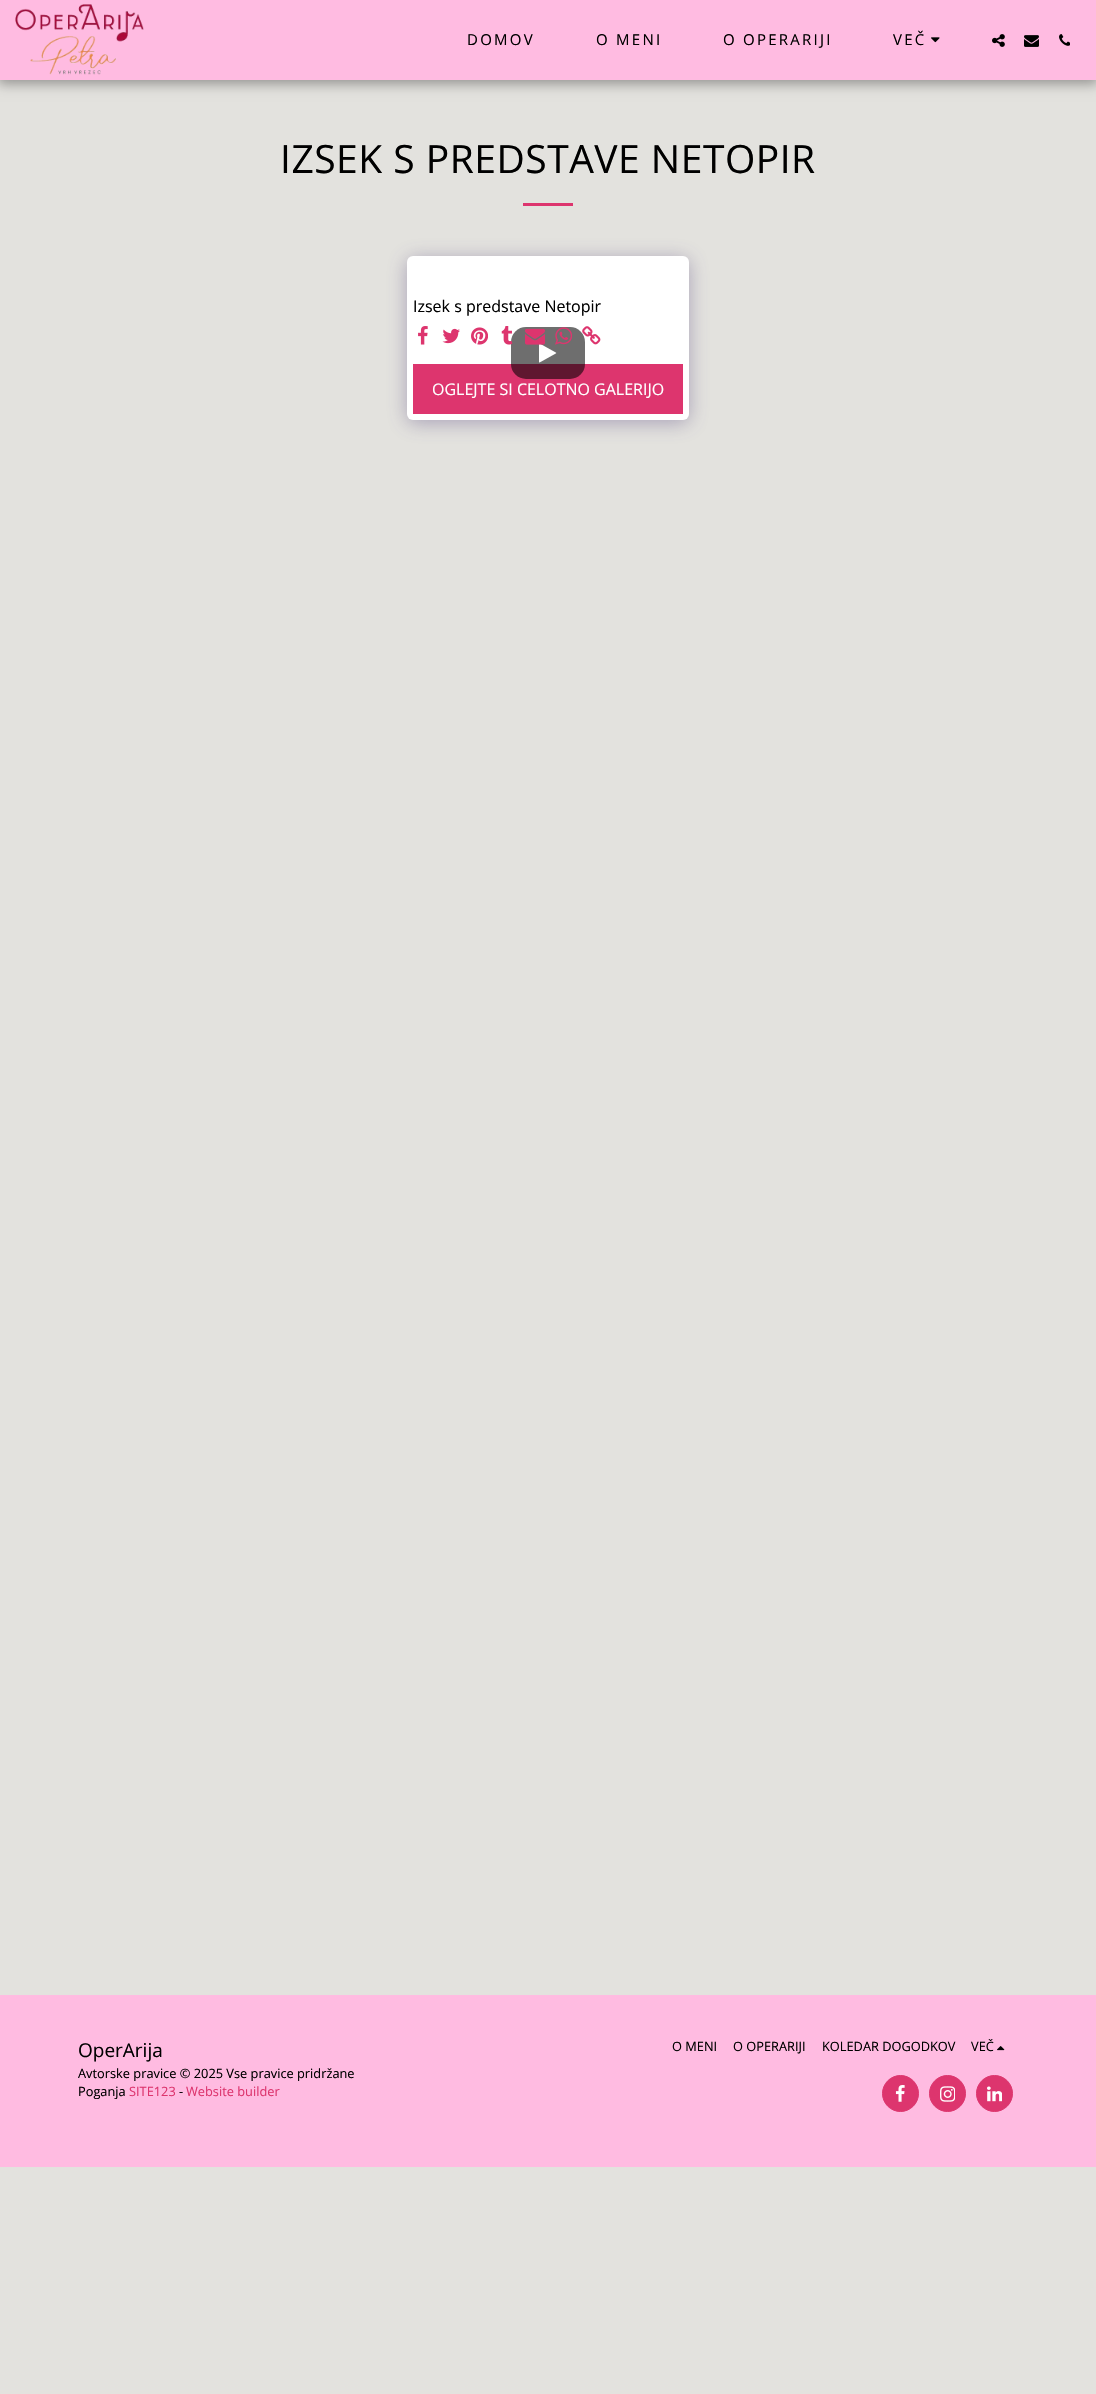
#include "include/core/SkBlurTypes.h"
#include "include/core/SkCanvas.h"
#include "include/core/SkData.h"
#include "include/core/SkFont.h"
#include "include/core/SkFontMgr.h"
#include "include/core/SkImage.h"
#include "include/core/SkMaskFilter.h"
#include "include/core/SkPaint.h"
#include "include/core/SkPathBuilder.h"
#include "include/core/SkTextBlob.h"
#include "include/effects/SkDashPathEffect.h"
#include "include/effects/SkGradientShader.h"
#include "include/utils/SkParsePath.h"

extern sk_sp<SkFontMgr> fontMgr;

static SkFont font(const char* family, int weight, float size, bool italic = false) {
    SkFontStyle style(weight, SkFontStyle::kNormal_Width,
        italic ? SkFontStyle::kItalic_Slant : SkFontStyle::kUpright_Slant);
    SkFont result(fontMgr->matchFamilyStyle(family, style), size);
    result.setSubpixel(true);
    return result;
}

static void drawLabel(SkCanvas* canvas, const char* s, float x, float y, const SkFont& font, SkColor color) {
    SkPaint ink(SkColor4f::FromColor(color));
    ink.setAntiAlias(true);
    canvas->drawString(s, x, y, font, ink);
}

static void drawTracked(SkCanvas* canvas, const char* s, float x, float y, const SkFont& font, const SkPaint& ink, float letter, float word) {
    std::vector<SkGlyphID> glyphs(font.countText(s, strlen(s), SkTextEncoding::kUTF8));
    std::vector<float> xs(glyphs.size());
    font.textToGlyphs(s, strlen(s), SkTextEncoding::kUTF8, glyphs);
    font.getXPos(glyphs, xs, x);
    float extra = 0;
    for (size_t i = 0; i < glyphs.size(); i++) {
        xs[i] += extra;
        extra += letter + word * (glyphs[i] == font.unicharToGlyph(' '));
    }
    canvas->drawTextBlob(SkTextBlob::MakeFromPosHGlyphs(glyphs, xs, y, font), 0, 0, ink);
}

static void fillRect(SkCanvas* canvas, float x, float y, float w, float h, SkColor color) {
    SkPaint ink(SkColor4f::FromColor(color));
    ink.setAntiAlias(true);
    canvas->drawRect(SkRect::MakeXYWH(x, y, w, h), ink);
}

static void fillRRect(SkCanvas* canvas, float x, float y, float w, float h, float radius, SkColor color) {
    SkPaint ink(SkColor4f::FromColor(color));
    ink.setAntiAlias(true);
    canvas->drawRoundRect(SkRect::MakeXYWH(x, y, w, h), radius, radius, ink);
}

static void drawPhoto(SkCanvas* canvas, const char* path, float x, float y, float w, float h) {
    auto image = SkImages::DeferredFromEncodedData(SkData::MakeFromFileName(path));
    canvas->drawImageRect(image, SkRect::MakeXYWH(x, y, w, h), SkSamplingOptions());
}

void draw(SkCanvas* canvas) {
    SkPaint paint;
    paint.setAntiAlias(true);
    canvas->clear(0xFFE3E2DE);
    paint.setColor(0x59000000);
    paint.setMaskFilter(SkMaskFilter::MakeBlur(kNormal_SkBlurStyle, 6));
    canvas->drawRect(SkRect::MakeXYWH(-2, 0, 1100, 84), paint);
    paint.setMaskFilter(nullptr);
    fillRect(canvas, 0, 0, 1096, 80, 0xFFFFBBE1);
    drawPhoto(canvas, "assets/img1.png", 15, 4, 129, 71);
    SkFont font1 = font("Open Sans", 400, 15);
    paint.setColor(0xFF000000);
    drawTracked(canvas, "DOMOV", 467, 45, font1, paint, 2.25f, 0);
    drawTracked(canvas, "O MENI", 596, 45, font1, paint, 2.25f, 0);
    drawTracked(canvas, "O OPERARIJI", 723, 45, font1, paint, 2.25f, 0);
    drawTracked(canvas, "VEČ", 893, 45, font1, paint, 2.25f, 0);
    drawPhoto(canvas, "assets/img2.png", 931, 37, 9, 6);
    drawPhoto(canvas, "assets/img3.png", 992, 34, 13, 13);
    drawPhoto(canvas, "assets/img4.png", 1024, 35, 15, 12);
    drawPhoto(canvas, "assets/img5.png", 1059, 34, 11, 12);
    SkFont font2 = font("Open Sans", 400, 39);
    drawTracked(canvas, "IZSEK S PREDSTAVE NETOPIR", 280, 173, font2, paint, 0.5f, 0);
    fillRect(canvas, 523, 203, 50, 3, 0xFFDD356E);
    paint.setColor(0x664D3F7A);
    paint.setMaskFilter(SkMaskFilter::MakeBlur(kNormal_SkBlurStyle, 10));
    canvas->drawRoundRect(SkRect::MakeXYWH(407, 259, 282, 164), 6, 6, paint);
    paint.setMaskFilter(nullptr);
    fillRRect(canvas, 407, 256, 282, 164, 6, 0xFFFFFFFF);
    SkFont font3 = font("Open Sans", 400, 16);
    drawLabel(canvas, "Izsek s predstave Netopir", 413, 312, font3, 0xFF000000);
    drawPhoto(canvas, "assets/img6.png", 418, 326, 10, 19);
    drawPhoto(canvas, "assets/img7.png", 442, 328, 18, 16);
    drawPhoto(canvas, "assets/img8.png", 471, 327, 17, 18);
    fillRect(canvas, 413, 364, 270, 50, 0xFFDD356E);
    fillRRect(canvas, 511, 327, 74, 52, 15, 0x91000000);
    drawPhoto(canvas, "assets/img9.png", 501, 326, 12, 19);
    drawPhoto(canvas, "assets/img13.png", 539, 344, 18, 19);
    drawPhoto(canvas, "assets/img10.png", 525, 328, 20, 17);
    drawPhoto(canvas, "assets/img11.png", 555, 327, 17, 18);
    drawPhoto(canvas, "assets/img12.png", 582, 326, 19, 19);
    drawLabel(canvas, "OGLEJTE SI CELOTNO GALERIJO", 432, 395, font3, 0xFFFFFFFF);
    fillRect(canvas, 0, 1995, 1096, 172, 0xFFFFBBE1);
    SkFont font4 = font("Open Sans", 400, 19);
    drawLabel(canvas, "OperArija", 78, 2057, font4, 0xFF000000);
    SkFont font5 = font("Open Sans", 400, 12.8f);
    drawLabel(canvas, "Avtorske pravice © 2025 Vse pravice pridržane", 78, 2078, font5, 0xFF000000);
    drawLabel(canvas, "Poganja", 78, 2096, font5, 0xFF000000);
    drawLabel(canvas, "SITE123", 129, 2096, font5, 0xFFDD356E);
    drawLabel(canvas, "-", 179, 2096, font5, 0xFF000000);
    drawLabel(canvas, "Website builder", 186, 2096, font5, 0xFFDD356E);
    drawLabel(canvas, "O MENI", 672, 2051, font5, 0xFF000000);
    drawLabel(canvas, "O OPERARIJI", 733, 2051, font5, 0xFF000000);
    drawLabel(canvas, "KOLEDAR DOGODKOV", 822, 2051, font5, 0xFF000000);
    drawLabel(canvas, "VEČ", 971, 2051, font5, 0xFF000000);
    drawPhoto(canvas, "assets/img14.png", 997, 2046, 8, 5);
    paint.setColor(0xFFDD356E);
    canvas->drawCircle(900.5f, 2093.5f, 18, paint);
    paint.setStroke(true);
    paint.setStrokeWidth(1);
    canvas->drawCircle(900.5f, 2093.5f, 18, paint);
    drawPhoto(canvas, "assets/img15.png", 895, 2085, 10, 17);
    paint.setStroke(false);
    canvas->drawCircle(947.5f, 2093.5f, 18, paint);
    paint.setStroke(true);
    canvas->drawCircle(947.5f, 2093.5f, 18, paint);
    drawPhoto(canvas, "assets/img16.png", 940, 2086, 15, 16);
    paint.setStroke(false);
    canvas->drawCircle(994.5f, 2093.5f, 18, paint);
    paint.setStroke(true);
    canvas->drawCircle(994.5f, 2093.5f, 18, paint);
    drawPhoto(canvas, "assets/img17.png", 987, 2086, 15, 16);
}
